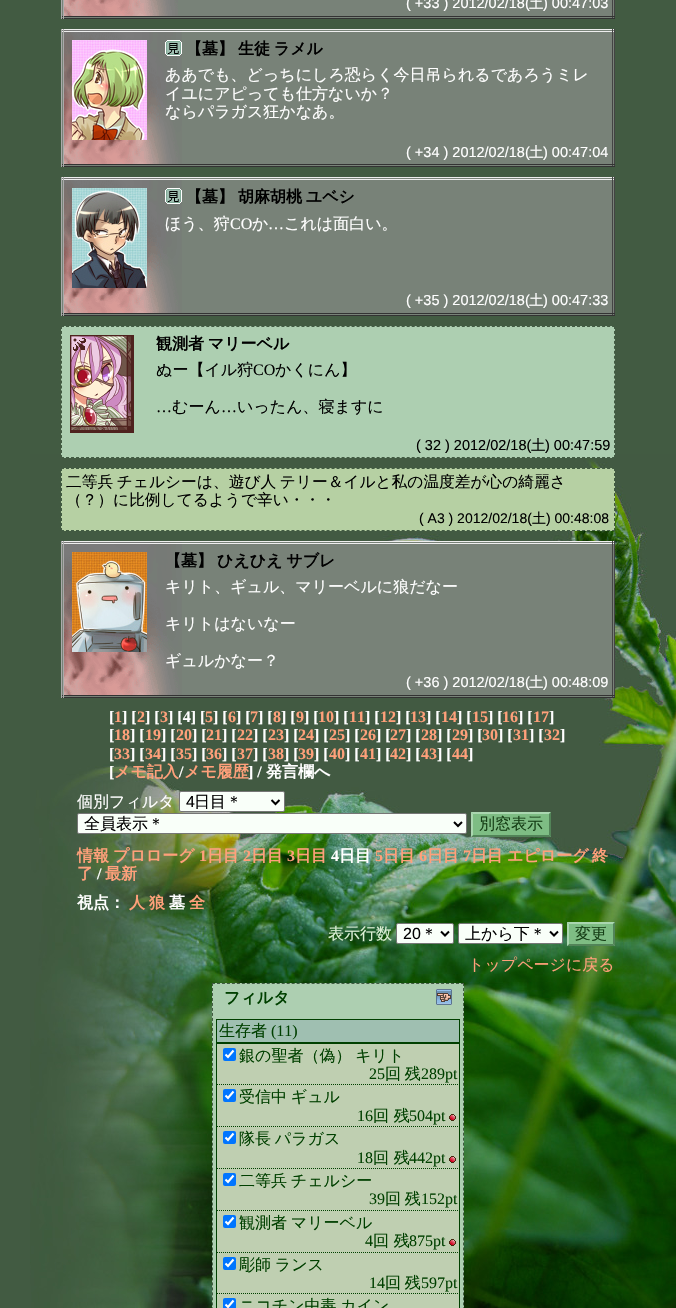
#include "include/core/SkBlurTypes.h"
#include "include/core/SkCanvas.h"
#include "include/core/SkData.h"
#include "include/core/SkFont.h"
#include "include/core/SkFontMgr.h"
#include "include/core/SkImage.h"
#include "include/core/SkMaskFilter.h"
#include "include/core/SkPaint.h"
#include "include/core/SkPathBuilder.h"
#include "include/core/SkTextBlob.h"
#include "include/effects/SkDashPathEffect.h"
#include "include/effects/SkGradientShader.h"
#include "include/utils/SkParsePath.h"

extern sk_sp<SkFontMgr> fontMgr;

static SkFont font(const char* family, int weight, float size, bool italic = false) {
    SkFontStyle style(weight, SkFontStyle::kNormal_Width,
        italic ? SkFontStyle::kItalic_Slant : SkFontStyle::kUpright_Slant);
    SkFont result(fontMgr->matchFamilyStyle(family, style), size);
    result.setSubpixel(true);
    return result;
}

static void drawLabel(SkCanvas* canvas, const char* s, float x, float y, const SkFont& font, SkColor color) {
    SkPaint ink(SkColor4f::FromColor(color));
    ink.setAntiAlias(true);
    canvas->drawString(s, x, y, font, ink);
}

static void drawTracked(SkCanvas* canvas, const char* s, float x, float y, const SkFont& font, const SkPaint& ink, float letter, float word) {
    std::vector<SkGlyphID> glyphs(font.countText(s, strlen(s), SkTextEncoding::kUTF8));
    std::vector<float> xs(glyphs.size());
    font.textToGlyphs(s, strlen(s), SkTextEncoding::kUTF8, glyphs);
    font.getXPos(glyphs, xs, x);
    float extra = 0;
    for (size_t i = 0; i < glyphs.size(); i++) {
        xs[i] += extra;
        extra += letter + word * (glyphs[i] == font.unicharToGlyph(' '));
    }
    canvas->drawTextBlob(SkTextBlob::MakeFromPosHGlyphs(glyphs, xs, y, font), 0, 0, ink);
}

static void fillRect(SkCanvas* canvas, float x, float y, float w, float h, SkColor color) {
    SkPaint ink(SkColor4f::FromColor(color));
    ink.setAntiAlias(true);
    canvas->drawRect(SkRect::MakeXYWH(x, y, w, h), ink);
}

static void fillRRect(SkCanvas* canvas, float x, float y, float w, float h, float radius, SkColor color) {
    SkPaint ink(SkColor4f::FromColor(color));
    ink.setAntiAlias(true);
    canvas->drawRoundRect(SkRect::MakeXYWH(x, y, w, h), radius, radius, ink);
}

static void drawPhoto(SkCanvas* canvas, const char* path, float x, float y, float w, float h) {
    auto image = SkImages::DeferredFromEncodedData(SkData::MakeFromFileName(path));
    canvas->drawImageRect(image, SkRect::MakeXYWH(x, y, w, h), SkSamplingOptions());
}

static SkPath parsePath(const char* data, bool evenOdd = false) {
    SkPath result = *SkParsePath::FromSVGString(data);
    if (evenOdd) result.setFillType(SkPathFillType::kEvenOdd);
    return result;
}

void draw(SkCanvas* canvas) {
    SkPaint paint;
    paint.setAntiAlias(true);
    canvas->clear(0xFF425B42);
    drawPhoto(canvas, "assets/img1.png", 30, 454, 646, 854);
    fillRect(canvas, 62, 0, 552, 18, 0xFF788278);
    drawPhoto(canvas, "assets/img2.png", 64, 0, 114, 16);
    fillRect(canvas, 612, 0, 1, 19, 0xFF444444);
    fillRect(canvas, 614, 0, 1, 19, 0xFF444444);
    fillRect(canvas, 61, 16, 554, 1, 0xFF333333);
    fillRect(canvas, 61, 18, 554, 1, 0xFF333333);
    fillRect(canvas, 61, 0, 1, 19, 0xFFAAAAAA);
    fillRect(canvas, 63, 0, 1, 19, 0xFFAAAAAA);
    SkFont font1 = font("Liberation Sans", 400, 14.5f);
    drawLabel(canvas, "( +33 ) 2012/02/18(", 406, 8, font1, 0xFFFFFFFF);
    SkFont font2 = font("WenQuanYi Zen Hei", 500, 14.5f);
    drawLabel(canvas, "土", 529, 8, font2, 0xFFFFFFFF);
    drawLabel(canvas, ") 00:47:03", 543, 8, font1, 0xFFFFFFFF);
    fillRect(canvas, 62, 30, 552, 136, 0xFF788278);
    drawPhoto(canvas, "assets/img3.png", 64, 30, 118, 134);
    fillRect(canvas, 61, 29, 554, 1, 0xFFEEEEEE);
    fillRect(canvas, 61, 31, 554, 1, 0xFFEEEEEE);
    fillRect(canvas, 612, 29, 1, 138, 0xFF444444);
    fillRect(canvas, 614, 29, 1, 138, 0xFF444444);
    fillRect(canvas, 61, 164, 554, 1, 0xFF333333);
    fillRect(canvas, 61, 166, 554, 1, 0xFF333333);
    fillRect(canvas, 61, 29, 1, 138, 0xFFAAAAAA);
    fillRect(canvas, 63, 29, 1, 138, 0xFFAAAAAA);
    drawPhoto(canvas, "assets/img4.png", 72, 40, 75, 100);
    drawPhoto(canvas, "assets/img5.png", 165, 40, 17, 16);
    SkFont font3 = font("WenQuanYi Zen Hei", 700, 16);
    drawLabel(canvas, "【墓】", 186, 54, font3, 0xFF000000);
    paint.setColor(0xFF000000);
    drawTracked(canvas, "生徒 ラメル", 238, 54, font3, paint, 0, -1);
    SkFont font4 = font("WenQuanYi Zen Hei", 500, 16);
    drawLabel(canvas, "ああでも、どっちにしろ恐らく今日吊られるであろうミレ", 165, 80, font4, 0xFFFFFFFF);
    drawLabel(canvas, "イユにアピっても仕方ないか？", 165, 99, font4, 0xFFFFFFFF);
    drawLabel(canvas, "ならパラガス狂かなあ。", 165, 117, font4, 0xFFFFFFFF);
    drawLabel(canvas, "( +34 ) 2012/02/18(", 406, 157, font1, 0xFFFFFFFF);
    drawLabel(canvas, "土", 529, 157, font2, 0xFFFFFFFF);
    drawLabel(canvas, ") 00:47:04", 543, 157, font1, 0xFFFFFFFF);
    fillRect(canvas, 62, 178, 552, 137, 0xFF788278);
    drawPhoto(canvas, "assets/img6.png", 64, 178, 118, 135);
    fillRect(canvas, 61, 177, 554, 1, 0xFFEEEEEE);
    fillRect(canvas, 61, 179, 554, 1, 0xFFEEEEEE);
    fillRect(canvas, 612, 177, 1, 139, 0xFF444444);
    fillRect(canvas, 614, 177, 1, 139, 0xFF444444);
    fillRect(canvas, 61, 313, 554, 1, 0xFF333333);
    fillRect(canvas, 61, 315, 554, 1, 0xFF333333);
    fillRect(canvas, 61, 177, 1, 139, 0xFFAAAAAA);
    fillRect(canvas, 63, 177, 1, 139, 0xFFAAAAAA);
    drawPhoto(canvas, "assets/img7.png", 72, 188, 75, 100);
    drawPhoto(canvas, "assets/img5.png", 165, 188, 17, 16);
    drawLabel(canvas, "【墓】", 186, 202, font3, 0xFF000000);
    drawTracked(canvas, "胡麻胡桃 ユベシ", 238, 202, font3, paint, 0, -1);
    drawLabel(canvas, "ほう、狩", 165, 229, font4, 0xFFFFFFFF);
    SkFont font5 = font("Liberation Serif", 400, 16);
    drawLabel(canvas, "CO", 230, 229, font5, 0xFFFFFFFF);
    drawLabel(canvas, "か", 252, 229, font4, 0xFFFFFFFF);
    drawLabel(canvas, "…", 268, 229, font5, 0xFFFFFFFF);
    drawLabel(canvas, "これは面白い。", 284, 229, font4, 0xFFFFFFFF);
    drawLabel(canvas, "( +35 ) 2012/02/18(", 406, 305, font1, 0xFFFFFFFF);
    drawLabel(canvas, "土", 529, 305, font2, 0xFFFFFFFF);
    drawLabel(canvas, ") 00:47:33", 543, 305, font1, 0xFFFFFFFF);
    fillRect(canvas, 61, 326, 554, 132, 0xFFADCFB1);
    paint.setStroke(true);
    paint.setStrokeWidth(1);
    paint.setColor(0xFF425B43);
    paint.setPathEffect(SkDashPathEffect::Make({{3, 2.01f}}, 0));
    canvas->drawPath(parsePath("M61 326.5H615"), paint);
    paint.setPathEffect(nullptr);
    paint.setPathEffect(SkDashPathEffect::Make({{3, 1.96f}}, 0));
    canvas->drawPath(parsePath("M614.5 326V458"), paint);
    paint.setPathEffect(nullptr);
    paint.setPathEffect(SkDashPathEffect::Make({{3, 2.01f}}, 0));
    canvas->drawPath(parsePath("M61 457.5H615"), paint);
    paint.setPathEffect(nullptr);
    paint.setPathEffect(SkDashPathEffect::Make({{3, 1.96f}}, 0));
    canvas->drawPath(parsePath("M61.5 326V458"), paint);
    paint.setPathEffect(nullptr);
    drawPhoto(canvas, "assets/img8.png", 70, 335, 64, 98);
    paint.setStroke(false);
    paint.setColor(0xFF000000);
    drawTracked(canvas, "観測者 マリーベル", 156, 349, font3, paint, 0, -1);
    drawLabel(canvas, "ぬー【イル狩", 156, 375, font4, 0xFF000000);
    drawLabel(canvas, "CO", 253, 375, font5, 0xFF000000);
    drawLabel(canvas, "かくにん】", 275, 375, font4, 0xFF000000);
    drawLabel(canvas, "…", 156, 412, font5, 0xFF000000);
    drawLabel(canvas, "むーん", 172, 412, font4, 0xFF000000);
    drawLabel(canvas, "…", 221, 412, font5, 0xFF000000);
    drawLabel(canvas, "いったん、寝ますに", 237, 412, font4, 0xFF000000);
    drawLabel(canvas, "( 32 ) 2012/02/18(", 416, 450, font1, 0xFF000000);
    drawLabel(canvas, "土", 531, 450, font2, 0xFF000000);
    drawLabel(canvas, ") 00:47:59", 545, 450, font1, 0xFF000000);
    fillRect(canvas, 61, 468, 554, 63, 0xFFB6D0A3);
    paint.setStroke(true);
    paint.setColor(0xFF425B43);
    paint.setPathEffect(SkDashPathEffect::Make({{3, 2.01f}}, 0));
    canvas->drawPath(parsePath("M61 468.5H615"), paint);
    paint.setPathEffect(nullptr);
    paint.setPathEffect(SkDashPathEffect::Make({{3, 2}}, 0));
    canvas->drawPath(parsePath("M614.5 468V531"), paint);
    paint.setPathEffect(nullptr);
    paint.setPathEffect(SkDashPathEffect::Make({{3, 2.01f}}, 0));
    canvas->drawPath(parsePath("M61 530.5H615"), paint);
    paint.setPathEffect(nullptr);
    paint.setPathEffect(SkDashPathEffect::Make({{3, 2}}, 0));
    canvas->drawPath(parsePath("M61.5 468V531"), paint);
    paint.setPathEffect(nullptr);
    SkFont font6 = font("WenQuanYi Zen Hei", 500, 15.7f);
    paint.setStroke(false);
    paint.setColor(0xFF000000);
    drawTracked(canvas, "二等兵 チェルシー", 66, 487, font6, paint, 0, -1);
    drawLabel(canvas, "は", 197, 487, font6, 0xFF000000);
    drawTracked(canvas, "、遊び人 テリー＆イルと私の温度差が心の綺麗さ", 213, 487, font6, paint, 0, -1);
    drawLabel(canvas, "（？）に比例してるようで辛い・・・", 66, 505, font6, 0xFF000000);
    SkFont font7 = font("Liberation Sans", 400, 14);
    drawLabel(canvas, "( A3 ) 2012/02/18(", 419, 523, font7, 0xFF000000);
    SkFont font8 = font("WenQuanYi Zen Hei", 500, 14);
    drawLabel(canvas, "土", 532, 523, font8, 0xFF000000);
    drawLabel(canvas, ") 00:48:08", 546, 523, font7, 0xFF000000);
    fillRect(canvas, 62, 542, 552, 155, 0xFF788278);
    drawPhoto(canvas, "assets/img9.png", 64, 542, 118, 153);
    fillRect(canvas, 61, 541, 554, 1, 0xFFEEEEEE);
    fillRect(canvas, 61, 543, 554, 1, 0xFFEEEEEE);
    fillRect(canvas, 612, 541, 1, 157, 0xFF444444);
    fillRect(canvas, 614, 541, 1, 157, 0xFF444444);
    fillRect(canvas, 61, 695, 554, 1, 0xFF333333);
    fillRect(canvas, 61, 697, 554, 1, 0xFF333333);
    fillRect(canvas, 61, 541, 1, 157, 0xFFAAAAAA);
    fillRect(canvas, 63, 541, 1, 157, 0xFFAAAAAA);
    drawPhoto(canvas, "assets/img10.png", 72, 552, 75, 100);
    drawLabel(canvas, "【墓】", 165, 566, font3, 0xFF000000);
    drawTracked(canvas, "ひえひえ サブレ", 217, 566, font3, paint, 0, -1);
    drawLabel(canvas, "キリト、ギュル、マリーベルに狼だなー", 165, 592, font4, 0xFFFFFFFF);
    drawLabel(canvas, "キリトはないなー", 165, 629, font4, 0xFFFFFFFF);
    drawLabel(canvas, "ギュルかなー？", 165, 666, font4, 0xFFFFFFFF);
    drawLabel(canvas, "( +36 ) 2012/02/18(", 406, 687, font1, 0xFFFFFFFF);
    drawLabel(canvas, "土", 529, 687, font2, 0xFFFFFFFF);
    drawLabel(canvas, ") 00:48:09", 543, 687, font1, 0xFFFFFFFF);
    SkFont font9 = font("Liberation Serif", 700, 16);
    drawLabel(canvas, "[", 109, 722, font9, 0xFFFFFFFF);
    drawLabel(canvas, "1", 114, 722, font9, 0xFFFFA07A);
    drawLabel(canvas, "] [", 122, 722, font9, 0xFFFFFFFF);
    drawLabel(canvas, "2", 137, 722, font9, 0xFFFFA07A);
    drawLabel(canvas, "] [", 145, 722, font9, 0xFFFFFFFF);
    drawLabel(canvas, "3", 160, 722, font9, 0xFFFFA07A);
    drawLabel(canvas, "] [4] [", 168, 722, font9, 0xFFFFFFFF);
    drawLabel(canvas, "5", 205, 722, font9, 0xFFFFA07A);
    drawLabel(canvas, "] [", 213, 722, font9, 0xFFFFFFFF);
    drawLabel(canvas, "6", 228, 722, font9, 0xFFFFA07A);
    drawLabel(canvas, "] [", 236, 722, font9, 0xFFFFFFFF);
    drawLabel(canvas, "7", 250, 722, font9, 0xFFFFA07A);
    drawLabel(canvas, "] [", 258, 722, font9, 0xFFFFFFFF);
    drawLabel(canvas, "8", 273, 722, font9, 0xFFFFA07A);
    drawLabel(canvas, "] [", 281, 722, font9, 0xFFFFFFFF);
    drawLabel(canvas, "9", 296, 722, font9, 0xFFFFA07A);
    drawLabel(canvas, "] [", 304, 722, font9, 0xFFFFFFFF);
    drawLabel(canvas, "10", 318, 722, font9, 0xFFFFA07A);
    drawLabel(canvas, "] [", 334, 722, font9, 0xFFFFFFFF);
    drawLabel(canvas, "11", 349, 722, font9, 0xFFFFA07A);
    drawLabel(canvas, "] [", 365, 722, font9, 0xFFFFFFFF);
    drawLabel(canvas, "12", 380, 722, font9, 0xFFFFA07A);
    drawLabel(canvas, "] [", 396, 722, font9, 0xFFFFFFFF);
    drawLabel(canvas, "13", 410, 722, font9, 0xFFFFA07A);
    drawLabel(canvas, "] [", 426, 722, font9, 0xFFFFFFFF);
    drawLabel(canvas, "14", 441, 722, font9, 0xFFFFA07A);
    drawLabel(canvas, "] [", 457, 722, font9, 0xFFFFFFFF);
    drawLabel(canvas, "15", 472, 722, font9, 0xFFFFA07A);
    drawLabel(canvas, "] [", 488, 722, font9, 0xFFFFFFFF);
    drawLabel(canvas, "16", 502, 722, font9, 0xFFFFA07A);
    drawLabel(canvas, "] [", 518, 722, font9, 0xFFFFFFFF);
    drawLabel(canvas, "17", 533, 722, font9, 0xFFFFA07A);
    drawLabel(canvas, "]", 549, 722, font9, 0xFFFFFFFF);
    drawLabel(canvas, "[", 109, 740, font9, 0xFFFFFFFF);
    drawLabel(canvas, "18", 114, 740, font9, 0xFFFFA07A);
    drawLabel(canvas, "] [", 130, 740, font9, 0xFFFFFFFF);
    drawLabel(canvas, "19", 145, 740, font9, 0xFFFFA07A);
    drawLabel(canvas, "] [", 161, 740, font9, 0xFFFFFFFF);
    drawLabel(canvas, "20", 176, 740, font9, 0xFFFFA07A);
    drawLabel(canvas, "] [", 192, 740, font9, 0xFFFFFFFF);
    drawLabel(canvas, "21", 206, 740, font9, 0xFFFFA07A);
    drawLabel(canvas, "] [", 222, 740, font9, 0xFFFFFFFF);
    drawLabel(canvas, "22", 237, 740, font9, 0xFFFFA07A);
    drawLabel(canvas, "] [", 253, 740, font9, 0xFFFFFFFF);
    drawLabel(canvas, "23", 268, 740, font9, 0xFFFFA07A);
    drawLabel(canvas, "] [", 284, 740, font9, 0xFFFFFFFF);
    drawLabel(canvas, "24", 298, 740, font9, 0xFFFFA07A);
    drawLabel(canvas, "] [", 314, 740, font9, 0xFFFFFFFF);
    drawLabel(canvas, "25", 329, 740, font9, 0xFFFFA07A);
    drawLabel(canvas, "] [", 345, 740, font9, 0xFFFFFFFF);
    drawLabel(canvas, "26", 360, 740, font9, 0xFFFFA07A);
    drawLabel(canvas, "] [", 376, 740, font9, 0xFFFFFFFF);
    drawLabel(canvas, "27", 390, 740, font9, 0xFFFFA07A);
    drawLabel(canvas, "] [", 406, 740, font9, 0xFFFFFFFF);
    drawLabel(canvas, "28", 421, 740, font9, 0xFFFFA07A);
    drawLabel(canvas, "] [", 437, 740, font9, 0xFFFFFFFF);
    drawLabel(canvas, "29", 452, 740, font9, 0xFFFFA07A);
    drawLabel(canvas, "] [", 468, 740, font9, 0xFFFFFFFF);
    drawLabel(canvas, "30", 482, 740, font9, 0xFFFFA07A);
    drawLabel(canvas, "] [", 498, 740, font9, 0xFFFFFFFF);
    drawLabel(canvas, "31", 513, 740, font9, 0xFFFFA07A);
    drawLabel(canvas, "] [", 529, 740, font9, 0xFFFFFFFF);
    drawLabel(canvas, "32", 544, 740, font9, 0xFFFFA07A);
    drawLabel(canvas, "]", 560, 740, font9, 0xFFFFFFFF);
    drawLabel(canvas, "[", 109, 759, font9, 0xFFFFFFFF);
    drawLabel(canvas, "33", 114, 759, font9, 0xFFFFA07A);
    drawLabel(canvas, "] [", 130, 759, font9, 0xFFFFFFFF);
    drawLabel(canvas, "34", 145, 759, font9, 0xFFFFA07A);
    drawLabel(canvas, "] [", 161, 759, font9, 0xFFFFFFFF);
    drawLabel(canvas, "35", 176, 759, font9, 0xFFFFA07A);
    drawLabel(canvas, "] [", 192, 759, font9, 0xFFFFFFFF);
    drawLabel(canvas, "36", 206, 759, font9, 0xFFFFA07A);
    drawLabel(canvas, "] [", 222, 759, font9, 0xFFFFFFFF);
    drawLabel(canvas, "37", 237, 759, font9, 0xFFFFA07A);
    drawLabel(canvas, "] [", 253, 759, font9, 0xFFFFFFFF);
    drawLabel(canvas, "38", 268, 759, font9, 0xFFFFA07A);
    drawLabel(canvas, "] [", 284, 759, font9, 0xFFFFFFFF);
    drawLabel(canvas, "39", 298, 759, font9, 0xFFFFA07A);
    drawLabel(canvas, "] [", 314, 759, font9, 0xFFFFFFFF);
    drawLabel(canvas, "40", 329, 759, font9, 0xFFFFA07A);
    drawLabel(canvas, "] [", 345, 759, font9, 0xFFFFFFFF);
    drawLabel(canvas, "41", 360, 759, font9, 0xFFFFA07A);
    drawLabel(canvas, "] [", 376, 759, font9, 0xFFFFFFFF);
    drawLabel(canvas, "42", 390, 759, font9, 0xFFFFA07A);
    drawLabel(canvas, "] [", 406, 759, font9, 0xFFFFFFFF);
    drawLabel(canvas, "43", 421, 759, font9, 0xFFFFA07A);
    drawLabel(canvas, "] [", 437, 759, font9, 0xFFFFFFFF);
    drawLabel(canvas, "44", 452, 759, font9, 0xFFFFA07A);
    drawLabel(canvas, "]", 468, 759, font9, 0xFFFFFFFF);
    drawLabel(canvas, "[", 109, 777, font9, 0xFFFFFFFF);
    drawLabel(canvas, "メモ記入", 114, 777, font3, 0xFFFFA07A);
    drawLabel(canvas, "/", 179, 777, font9, 0xFFFFFFFF);
    drawLabel(canvas, "メモ履歴", 184, 777, font3, 0xFFFFA07A);
    drawLabel(canvas, "] /", 248, 777, font9, 0xFFFFFFFF);
    drawLabel(canvas, "発言欄へ", 266, 777, font3, 0xFFFFFFFF);
    drawLabel(canvas, "個別フィルタ", 77, 807, font4, 0xFFFFFFFF);
    paint.setColor(0xFFF9FFF9);
    canvas->drawRoundRect(SkRect::MakeXYWH(179.5f, 791.5f, 105, 20), 1.5f, 1.5f, paint);
    paint.setStroke(true);
    paint.setColor(0xFF767676);
    canvas->drawRoundRect(SkRect::MakeXYWH(179.5f, 791.5f, 105, 20), 1.5f, 1.5f, paint);
    paint.setStrokeWidth(2);
    paint.setColor(0xFF000000);
    canvas->drawPath(parsePath("M271.5 800L275.5 804L279.5 800"), paint);
    SkFont font10 = font("Liberation Sans", 400, 16);
    drawLabel(canvas, "4", 186, 807, font10, 0xFF000000);
    drawLabel(canvas, "日目＊", 194, 807, font4, 0xFF000000);
    paint.setStroke(false);
    paint.setColor(0xFFF9FFF9);
    canvas->drawRoundRect(SkRect::MakeXYWH(77.5f, 813.5f, 389, 20), 1.5f, 1.5f, paint);
    paint.setStroke(true);
    paint.setStrokeWidth(1);
    paint.setColor(0xFF767676);
    canvas->drawRoundRect(SkRect::MakeXYWH(77.5f, 813.5f, 389, 20), 1.5f, 1.5f, paint);
    paint.setStrokeWidth(2);
    paint.setColor(0xFF000000);
    canvas->drawPath(parsePath("M454 822L458 826L462 822"), paint);
    drawLabel(canvas, "全員表示＊", 84, 829, font4, 0xFF000000);
    fillRect(canvas, 471, 812, 80, 25, 0xFF7EBD84);
    paint.setStroke(false);
    paint.setColor(0xFFAAD6B0);
    canvas->drawPath(parsePath("M471 812H551L549 814H473Z"), paint);
    paint.setColor(0xFF528458);
    canvas->drawPath(parsePath("M551 812V837L549 835V814Z"), paint);
    canvas->drawPath(parsePath("M551 837H471L473 835H549Z"), paint);
    paint.setColor(0xFFAAD6B0);
    canvas->drawPath(parsePath("M471 837V812L473 814V835Z"), paint);
    drawLabel(canvas, "別窓表示", 479, 829, font4, 0xFF163F16);
    drawLabel(canvas, "情報", 77, 861, font3, 0xFFFFA07A);
    drawLabel(canvas, "プロローグ", 113, 861, font3, 0xFFFFA07A);
    drawLabel(canvas, "1", 199, 861, font9, 0xFFFFA07A);
    drawLabel(canvas, "日目", 207, 861, font3, 0xFFFFA07A);
    drawLabel(canvas, "2", 243, 861, font9, 0xFFFFA07A);
    drawLabel(canvas, "日目", 251, 861, font3, 0xFFFFA07A);
    drawLabel(canvas, "3", 287, 861, font9, 0xFFFFA07A);
    drawLabel(canvas, "日目", 295, 861, font3, 0xFFFFA07A);
    drawLabel(canvas, "4", 331, 861, font9, 0xFFFFFFFF);
    drawLabel(canvas, "日目", 339, 861, font3, 0xFFFFFFFF);
    drawLabel(canvas, "5", 375, 861, font9, 0xFFFFA07A);
    drawLabel(canvas, "日目", 383, 861, font3, 0xFFFFA07A);
    drawLabel(canvas, "6", 419, 861, font9, 0xFFFFA07A);
    drawLabel(canvas, "日目", 427, 861, font3, 0xFFFFA07A);
    drawLabel(canvas, "7", 463, 861, font9, 0xFFFFA07A);
    drawLabel(canvas, "日目", 471, 861, font3, 0xFFFFA07A);
    drawLabel(canvas, "エピローグ", 507, 861, font3, 0xFFFFA07A);
    drawLabel(canvas, "終", 592, 861, font3, 0xFFFFA07A);
    drawLabel(canvas, "了", 77, 879, font3, 0xFFFFA07A);
    drawLabel(canvas, "/", 97, 879, font9, 0xFFFFFFFF);
    drawLabel(canvas, "最新", 105, 879, font3, 0xFFFFA07A);
    drawLabel(canvas, "視点：", 77, 908, font3, 0xFFFFFFFF);
    drawLabel(canvas, "人", 129, 908, font3, 0xFFFFA07A);
    drawLabel(canvas, "狼", 149, 908, font3, 0xFFFFA07A);
    drawLabel(canvas, "墓", 169, 908, font3, 0xFFFFFFFF);
    drawLabel(canvas, "全", 189, 908, font3, 0xFFFFA07A);
    drawLabel(canvas, "表示行数", 328, 939, font4, 0xFFDDF0D6);
    paint.setColor(0xFFF9FFF9);
    canvas->drawRoundRect(SkRect::MakeXYWH(396.5f, 923.5f, 57, 20), 1.5f, 1.5f, paint);
    paint.setStroke(true);
    paint.setStrokeWidth(1);
    paint.setColor(0xFF767676);
    canvas->drawRoundRect(SkRect::MakeXYWH(396.5f, 923.5f, 57, 20), 1.5f, 1.5f, paint);
    paint.setStrokeWidth(2);
    paint.setColor(0xFF000000);
    canvas->drawPath(parsePath("M441 931.5L445 935.5L449 931.5"), paint);
    drawLabel(canvas, "20", 403, 939, font10, 0xFF000000);
    drawLabel(canvas, "＊", 421, 939, font4, 0xFF000000);
    paint.setStroke(false);
    paint.setColor(0xFFF9FFF9);
    canvas->drawRoundRect(SkRect::MakeXYWH(458.5f, 923.5f, 104, 20), 1.5f, 1.5f, paint);
    paint.setStroke(true);
    paint.setStrokeWidth(1);
    paint.setColor(0xFF767676);
    canvas->drawRoundRect(SkRect::MakeXYWH(458.5f, 923.5f, 104, 20), 1.5f, 1.5f, paint);
    paint.setStrokeWidth(2);
    paint.setColor(0xFF000000);
    canvas->drawPath(parsePath("M550 931.5L554 935.5L558 931.5"), paint);
    drawLabel(canvas, "上から下＊", 465, 939, font4, 0xFF000000);
    fillRect(canvas, 567, 922, 48, 24, 0xFF7EBD84);
    paint.setStroke(false);
    paint.setColor(0xFFAAD6B0);
    canvas->drawPath(parsePath("M567 922H615L613 924H569Z"), paint);
    paint.setColor(0xFF528458);
    canvas->drawPath(parsePath("M615 922V946L613 944V924Z"), paint);
    canvas->drawPath(parsePath("M615 946H567L569 944H613Z"), paint);
    paint.setColor(0xFFAAD6B0);
    canvas->drawPath(parsePath("M567 946V922L569 924V944Z"), paint);
    drawLabel(canvas, "変更", 575, 939, font4, 0xFF163F16);
    drawLabel(canvas, "トップページに戻る", 468, 970, font4, 0xFFFFA07A);
    fillRect(canvas, 212, 983, 252, 325, 0xFFADCFB1);
    paint.setStroke(true);
    paint.setStrokeWidth(1);
    paint.setColor(0xFF425B43);
    paint.setPathEffect(SkDashPathEffect::Make({{3, 1.98f}}, 0));
    canvas->drawPath(parsePath("M212 983.5H464"), paint);
    paint.setPathEffect(nullptr);
    paint.setPathEffect(SkDashPathEffect::Make({{3, 1.99f}}, 0));
    canvas->drawPath(parsePath("M463.5 983V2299"), paint);
    paint.setPathEffect(nullptr);
    paint.setPathEffect(SkDashPathEffect::Make({{3, 1.99f}}, 0));
    canvas->drawPath(parsePath("M212.5 983V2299"), paint);
    paint.setPathEffect(nullptr);
    drawLabel(canvas, "フィルタ", 224, 1003, font3, 0xFF004000);
    drawPhoto(canvas, "assets/img11.png", 436, 989, 16, 16);
    paint.setStroke(false);
    paint.setColor(0xFF9FBFB1);
    canvas->drawRect(SkRect::MakeXYWH(216.5f, 1019.5f, 243, 23), paint);
    paint.setStroke(true);
    paint.setColor(0xFF004000);
    canvas->drawRect(SkRect::MakeXYWH(216.5f, 1019.5f, 243, 23), paint);
    drawLabel(canvas, "生存者", 219, 1036, font4, 0xFF004000);
    drawLabel(canvas, "(11)", 271, 1036, font5, 0xFF004000);
    canvas->drawRect(SkRect::MakeXYWH(216.5f, 1043.5f, 243, 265), paint);
    fillRect(canvas, 217, 1044, 242, 264, 0xFFBFCFB1);
    paint.setPathEffect(SkDashPathEffect::Make({{1, 1}}, 0));
    canvas->drawPath(parsePath("M217 1084.5H459"), paint);
    paint.setPathEffect(nullptr);
    fillRRect(canvas, 223, 1048, 13, 13, 2, 0xFF0075FF);
    paint.setStrokeWidth(2.1f);
    paint.setColor(0xFFFFFFFF);
    canvas->drawPath(parsePath("M225.5 1054.5L228 1057L233.5 1050.5"), paint);
    paint.setStroke(false);
    paint.setColor(0xFF004000);
    drawTracked(canvas, "銀の聖者（偽） キリト", 239, 1061, font4, paint, 0, -1);
    drawLabel(canvas, "25", 369, 1079, font5, 0xFF004000);
    drawTracked(canvas, "回 残", 385, 1079, font4, paint, 0, -1);
    drawLabel(canvas, "289pt", 421, 1079, font5, 0xFF004000);
    paint.setStroke(true);
    paint.setStrokeWidth(1);
    paint.setPathEffect(SkDashPathEffect::Make({{1, 1}}, 0));
    canvas->drawPath(parsePath("M217 1126.5H459"), paint);
    paint.setPathEffect(nullptr);
    fillRRect(canvas, 223, 1089, 13, 13, 2, 0xFF0075FF);
    paint.setStrokeWidth(2.1f);
    paint.setColor(0xFFFFFFFF);
    canvas->drawPath(parsePath("M225.5 1095.5L228 1098L233.5 1091.5"), paint);
    paint.setStroke(false);
    paint.setColor(0xFF004000);
    drawTracked(canvas, "受信中 ギュル", 239, 1102, font4, paint, 0, -1);
    drawLabel(canvas, "16", 357, 1121, font5, 0xFF004000);
    drawLabel(canvas, "回 残", 373, 1121, font4, 0xFF004000);
    drawLabel(canvas, "504pt", 409, 1121, font5, 0xFF004000);
    drawPhoto(canvas, "assets/img12.png", 449, 1114, 7, 7);
    paint.setStroke(true);
    paint.setStrokeWidth(1);
    paint.setPathEffect(SkDashPathEffect::Make({{1, 1}}, 0));
    canvas->drawPath(parsePath("M217 1168.5H459"), paint);
    paint.setPathEffect(nullptr);
    fillRRect(canvas, 223, 1131, 13, 13, 2, 0xFF0075FF);
    paint.setStrokeWidth(2.1f);
    paint.setColor(0xFFFFFFFF);
    canvas->drawPath(parsePath("M225.5 1137.5L228 1140L233.5 1133.5"), paint);
    paint.setStroke(false);
    paint.setColor(0xFF004000);
    drawTracked(canvas, "隊長 パラガス", 239, 1144, font4, paint, 0, -1);
    drawLabel(canvas, "18", 357, 1163, font5, 0xFF004000);
    drawLabel(canvas, "回 残", 373, 1163, font4, 0xFF004000);
    drawLabel(canvas, "442pt", 409, 1163, font5, 0xFF004000);
    drawPhoto(canvas, "assets/img12.png", 449, 1156, 7, 7);
    paint.setStroke(true);
    paint.setStrokeWidth(1);
    paint.setPathEffect(SkDashPathEffect::Make({{1, 1}}, 0));
    canvas->drawPath(parsePath("M217 1210.5H459"), paint);
    paint.setPathEffect(nullptr);
    fillRRect(canvas, 223, 1173, 13, 13, 2, 0xFF0075FF);
    paint.setStrokeWidth(2.1f);
    paint.setColor(0xFFFFFFFF);
    canvas->drawPath(parsePath("M225.5 1179.5L228 1182L233.5 1175.5"), paint);
    paint.setStroke(false);
    paint.setColor(0xFF004000);
    drawTracked(canvas, "二等兵 チェルシー", 239, 1186, font4, paint, 0, -1);
    drawLabel(canvas, "39", 369, 1204, font5, 0xFF004000);
    drawTracked(canvas, "回 残", 385, 1204, font4, paint, 0, -1);
    drawLabel(canvas, "152pt", 421, 1204, font5, 0xFF004000);
    paint.setStroke(true);
    paint.setStrokeWidth(1);
    paint.setPathEffect(SkDashPathEffect::Make({{1, 1}}, 0));
    canvas->drawPath(parsePath("M217 1252.5H459"), paint);
    paint.setPathEffect(nullptr);
    fillRRect(canvas, 223, 1215, 13, 13, 2, 0xFF0075FF);
    paint.setStrokeWidth(2.1f);
    paint.setColor(0xFFFFFFFF);
    canvas->drawPath(parsePath("M225.5 1221.5L228 1224L233.5 1217.5"), paint);
    paint.setStroke(false);
    paint.setColor(0xFF004000);
    drawTracked(canvas, "観測者 マリーベル", 239, 1228, font4, paint, 0, -1);
    drawLabel(canvas, "4", 365, 1246, font5, 0xFF004000);
    drawLabel(canvas, "回 残", 373, 1246, font4, 0xFF004000);
    drawLabel(canvas, "875pt", 409, 1246, font5, 0xFF004000);
    drawPhoto(canvas, "assets/img12.png", 449, 1239, 7, 7);
    paint.setStroke(true);
    paint.setStrokeWidth(1);
    paint.setPathEffect(SkDashPathEffect::Make({{1, 1}}, 0));
    canvas->drawPath(parsePath("M217 1293.5H459"), paint);
    paint.setPathEffect(nullptr);
    fillRRect(canvas, 223, 1257, 13, 13, 2, 0xFF0075FF);
    paint.setStrokeWidth(2.1f);
    paint.setColor(0xFFFFFFFF);
    canvas->drawPath(parsePath("M225.5 1263.5L228 1266L233.5 1259.5"), paint);
    paint.setStroke(false);
    paint.setColor(0xFF004000);
    drawTracked(canvas, "彫師 ランス", 239, 1270, font4, paint, 0, -1);
    drawLabel(canvas, "14", 369, 1288, font5, 0xFF004000);
    drawTracked(canvas, "回 残", 385, 1288, font4, paint, 0, -1);
    drawLabel(canvas, "597pt", 421, 1288, font5, 0xFF004000);
    fillRRect(canvas, 223, 1298, 13, 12, 2, 0xFF0075FF);
    paint.setStroke(true);
    paint.setColor(0xFFFFFFFF);
    canvas->drawPath(parsePath("M225.5 1304.5L228 1307L233.5 1300.5"), paint);
    paint.setStroke(false);
    paint.setColor(0xFF004000);
    drawTracked(canvas, "ニコチン中毒 カイン", 239, 1311, font4, paint, 0, -1);
}
